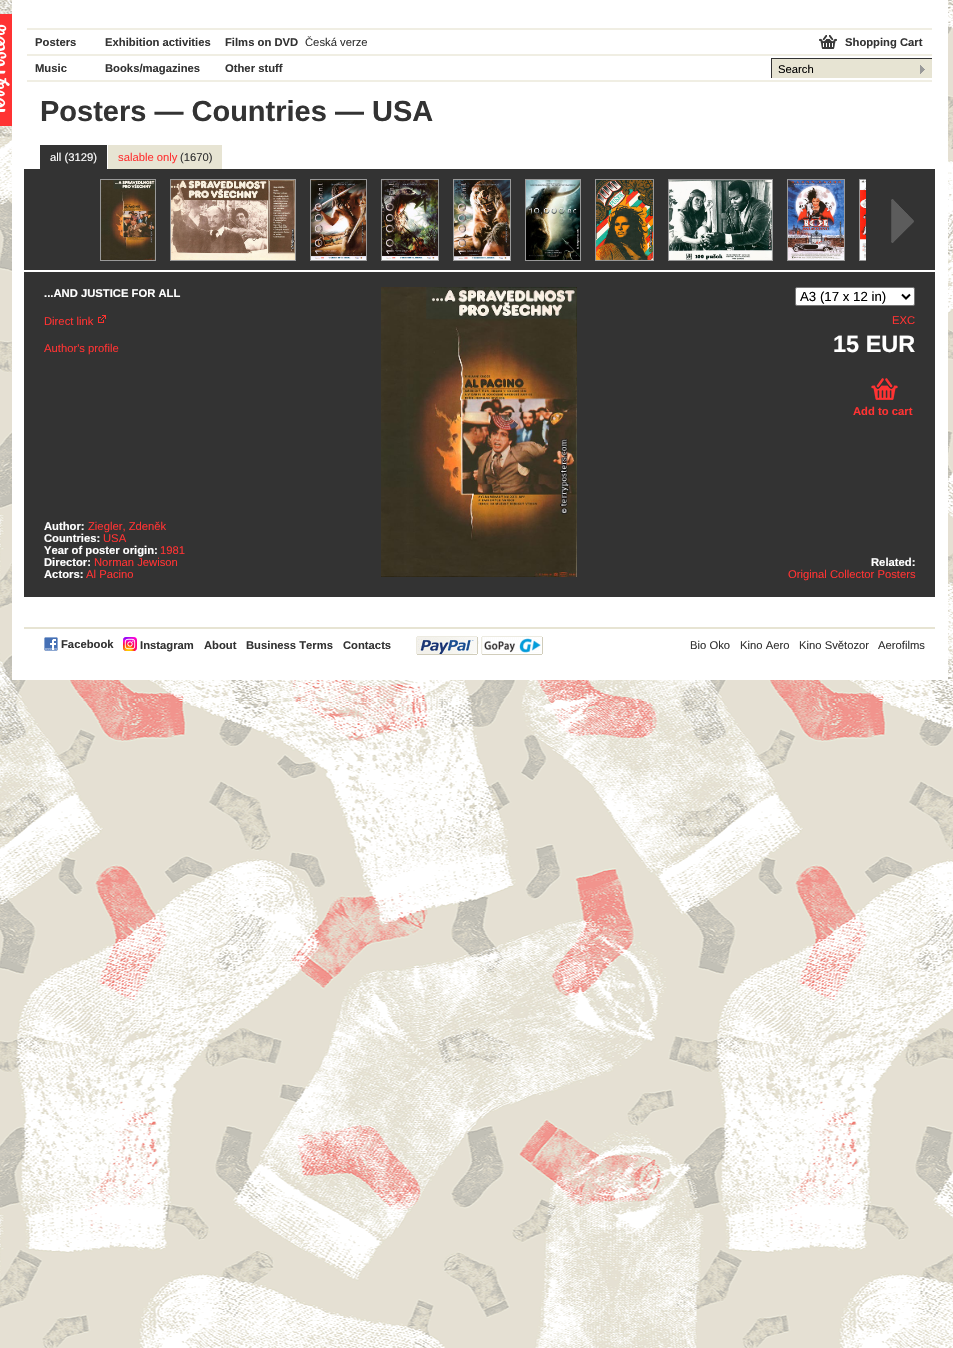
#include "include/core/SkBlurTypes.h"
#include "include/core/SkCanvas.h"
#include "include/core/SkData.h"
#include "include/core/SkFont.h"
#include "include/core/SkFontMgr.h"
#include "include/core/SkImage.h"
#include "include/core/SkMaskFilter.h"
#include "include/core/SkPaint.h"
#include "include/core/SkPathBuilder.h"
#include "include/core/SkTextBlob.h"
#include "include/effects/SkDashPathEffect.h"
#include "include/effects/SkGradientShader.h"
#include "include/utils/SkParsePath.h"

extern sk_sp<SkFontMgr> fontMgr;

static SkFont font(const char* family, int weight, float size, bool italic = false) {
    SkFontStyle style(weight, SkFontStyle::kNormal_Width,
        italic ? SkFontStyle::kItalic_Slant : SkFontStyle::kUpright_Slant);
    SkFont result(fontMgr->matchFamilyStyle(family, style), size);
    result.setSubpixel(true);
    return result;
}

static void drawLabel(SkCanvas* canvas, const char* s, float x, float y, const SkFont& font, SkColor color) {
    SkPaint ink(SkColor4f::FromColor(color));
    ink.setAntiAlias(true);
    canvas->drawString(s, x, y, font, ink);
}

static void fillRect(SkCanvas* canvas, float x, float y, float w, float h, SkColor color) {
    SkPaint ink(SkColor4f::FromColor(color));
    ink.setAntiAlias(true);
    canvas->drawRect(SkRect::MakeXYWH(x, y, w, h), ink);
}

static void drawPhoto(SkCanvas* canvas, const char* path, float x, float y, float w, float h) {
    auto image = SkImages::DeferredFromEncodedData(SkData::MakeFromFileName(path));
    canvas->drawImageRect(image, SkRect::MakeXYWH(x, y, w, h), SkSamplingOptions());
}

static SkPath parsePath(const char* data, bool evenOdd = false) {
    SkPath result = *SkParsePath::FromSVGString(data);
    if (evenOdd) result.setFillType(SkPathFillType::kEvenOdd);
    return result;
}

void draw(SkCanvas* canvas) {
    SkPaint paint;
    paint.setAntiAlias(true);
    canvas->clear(0xFFFFFFFF);
    drawPhoto(canvas, "assets/img1.png", 0, 0, 953, 1348);
    fillRect(canvas, 0, 14, 12, 112, 0xFFFF3333);
    drawPhoto(canvas, "assets/img2.png", 0, 24, 10, 88);
    fillRect(canvas, 12, 0, 936, 680, 0xFFFFFFFF);
    drawPhoto(canvas, "assets/img3.png", 27, 28, 905, 54);
    SkFont font1 = font("Liberation Sans", 700, 11.25f);
    drawLabel(canvas, "Posters", 35, 46, font1, 0xFF333333);
    drawLabel(canvas, "Exhibition activities", 105, 46, font1, 0xFF333333);
    drawLabel(canvas, "Films on DVD", 225, 46, font1, 0xFF333333);
    SkFont font2 = font("Liberation Sans", 400, 11.25f);
    drawLabel(canvas, "Česká verze", 305, 46, font2, 0xFF333333);
    drawLabel(canvas, "Music", 35, 72, font1, 0xFF333333);
    drawLabel(canvas, "Books/magazines", 105, 72, font1, 0xFF333333);
    drawLabel(canvas, "Other stuff", 225, 72, font1, 0xFF333333);
    drawPhoto(canvas, "assets/img4.png", 819, 35, 18, 14);
    drawLabel(canvas, "Shopping Cart", 845, 46, font1, 0xFF333333);
    fillRect(canvas, 772, 59, 160, 19, 0xFFE7E4D3);
    fillRect(canvas, 771, 58, 161, 1, 0xFF333333);
    fillRect(canvas, 771, 58, 1, 20, 0xFF333333);
    drawLabel(canvas, "Search", 778, 73, font2, 0xFF000000);
    drawPhoto(canvas, "assets/img5.png", 920, 65, 5, 9);
    SkFont font3 = font("Liberation Sans", 700, 29);
    drawLabel(canvas, "Posters — Countries — USA", 40, 121, font3, 0xFF333333);
    fillRect(canvas, 40, 145, 67, 24, 0xFF333333);
    drawLabel(canvas, "all (3129)", 50, 161, font2, 0xFFFFFFFF);
    fillRect(canvas, 108, 145, 114, 24, 0xFFE7E4D3);
    drawLabel(canvas, "salable only", 118, 161, font2, 0xFFFF3333);
    drawLabel(canvas, "(1670)", 180, 161, font2, 0xFF333333);
    fillRect(canvas, 24, 169, 911, 101, 0xFF333333);
    paint.setStroke(true);
    paint.setStrokeWidth(1);
    paint.setColor(0xFF999999);
    canvas->drawRect(SkRect::MakeXYWH(100.5f, 179.5f, 55, 81), paint);
    drawPhoto(canvas, "assets/img6.png", 101, 180, 54, 80);
    canvas->drawRect(SkRect::MakeXYWH(170.5f, 179.5f, 125, 81), paint);
    drawPhoto(canvas, "assets/img7.png", 171, 180, 124, 80);
    canvas->drawRect(SkRect::MakeXYWH(310.5f, 179.5f, 56, 81), paint);
    drawPhoto(canvas, "assets/img8.png", 311, 180, 55, 80);
    canvas->drawRect(SkRect::MakeXYWH(381.5f, 179.5f, 57, 81), paint);
    drawPhoto(canvas, "assets/img9.png", 382, 180, 56, 80);
    canvas->drawRect(SkRect::MakeXYWH(453.5f, 179.5f, 57, 81), paint);
    drawPhoto(canvas, "assets/img10.png", 454, 180, 56, 80);
    canvas->drawRect(SkRect::MakeXYWH(525.5f, 179.5f, 55, 81), paint);
    drawPhoto(canvas, "assets/img11.png", 526, 180, 54, 80);
    canvas->drawRect(SkRect::MakeXYWH(595.5f, 179.5f, 58, 81), paint);
    drawPhoto(canvas, "assets/img12.png", 596, 180, 57, 80);
    canvas->drawRect(SkRect::MakeXYWH(668.5f, 179.5f, 104, 81), paint);
    drawPhoto(canvas, "assets/img13.png", 669, 180, 103, 80);
    canvas->drawRect(SkRect::MakeXYWH(787.5f, 179.5f, 57, 81), paint);
    drawPhoto(canvas, "assets/img14.png", 788, 180, 56, 80);
    drawPhoto(canvas, "assets/img16.png", 891, 199, 23, 44);
    canvas->save();
    canvas->clipRect(SkRect::MakeXYWH(100, 169, 766, 101));
    canvas->drawRect(SkRect::MakeXYWH(859.5f, 179.5f, 58, 81), paint);
    canvas->restore();
    drawPhoto(canvas, "assets/img15.png", 860, 180, 6, 80);
    fillRect(canvas, 24, 272, 911, 325, 0xFF333333);
    drawLabel(canvas, "...AND JUSTICE FOR ALL", 44, 297, font1, 0xFFFFFFFF);
    drawLabel(canvas, "Direct link", 44, 325, font2, 0xFFFF3333);
    drawPhoto(canvas, "assets/img17.png", 98, 315, 8, 8);
    drawLabel(canvas, "Author's profile", 44, 352, font2, 0xFFFF3333);
    drawLabel(canvas, "Author:", 44, 530, font1, 0xFFFFFFFF);
    drawLabel(canvas, "Ziegler, Zdeněk", 88, 530, font2, 0xFFFF3333);
    drawLabel(canvas, "Countries:", 44, 542, font1, 0xFFFFFFFF);
    drawLabel(canvas, "USA", 103, 542, font2, 0xFFFF3333);
    drawLabel(canvas, "Year of poster origin:", 44, 554, font1, 0xFFFFFFFF);
    drawLabel(canvas, "1981", 160, 554, font2, 0xFFFF3333);
    drawLabel(canvas, "Director:", 44, 566, font1, 0xFFFFFFFF);
    drawLabel(canvas, "Norman Jewison", 94, 566, font2, 0xFFFF3333);
    drawLabel(canvas, "Actors:", 44, 578, font1, 0xFFFFFFFF);
    drawLabel(canvas, "Al Pacino", 86, 578, font2, 0xFFFF3333);
    drawPhoto(canvas, "assets/img18.png", 381, 287, 196, 290);
    paint.setStroke(false);
    paint.setColor(0xFFFFFFFF);
    canvas->drawRoundRect(SkRect::MakeXYWH(795.5f, 287.5f, 119, 18), 1.5f, 1.5f, paint);
    paint.setStroke(true);
    paint.setColor(0xFF767676);
    canvas->drawRoundRect(SkRect::MakeXYWH(795.5f, 287.5f, 119, 18), 1.5f, 1.5f, paint);
    paint.setStrokeWidth(2);
    paint.setColor(0xFF000000);
    canvas->drawPath(parsePath("M902 294.5L906 298.5L910 294.5"), paint);
    SkFont font4 = font("Liberation Sans", 400, 13.25f);
    drawLabel(canvas, "A3 (17 x 12 in)", 800, 301, font4, 0xFF000000);
    drawLabel(canvas, "EXC", 892, 324, font2, 0xFFFF3333);
    SkFont font5 = font("Liberation Sans", 700, 23.5f);
    drawLabel(canvas, "15 EUR", 833, 352, font5, 0xFFFFFFFF);
    drawPhoto(canvas, "assets/img19.png", 871, 378, 27, 22);
    drawLabel(canvas, "Add to cart", 853, 415, font1, 0xFFFF3333);
    drawLabel(canvas, "Related:", 871, 566, font1, 0xFFFFFFFF);
    drawLabel(canvas, "Original Collector Posters", 788, 578, font2, 0xFFFF3333);
    fillRect(canvas, 24, 627, 911, 2, 0xFFE7E4D3);
    drawPhoto(canvas, "assets/img20.png", 44, 637, 14, 14);
    drawLabel(canvas, "Facebook", 61, 648, font1, 0xFF333333);
    drawPhoto(canvas, "assets/img21.png", 123, 637, 14, 14);
    drawLabel(canvas, "Instagram", 140, 649, font1, 0xFF333333);
    drawLabel(canvas, "About", 204, 649, font1, 0xFF333333);
    drawLabel(canvas, "Business Terms", 246, 649, font1, 0xFF333333);
    drawLabel(canvas, "Contacts", 343, 649, font1, 0xFF333333);
    drawPhoto(canvas, "assets/img22.png", 416, 636, 127, 19);
    drawLabel(canvas, "Bio Oko", 690, 649, font2, 0xFF333333);
    drawLabel(canvas, "Kino Aero", 740, 649, font2, 0xFF333333);
    drawLabel(canvas, "Kino Světozor", 799, 649, font2, 0xFF333333);
    drawLabel(canvas, "Aerofilms", 878, 649, font2, 0xFF333333);
}
